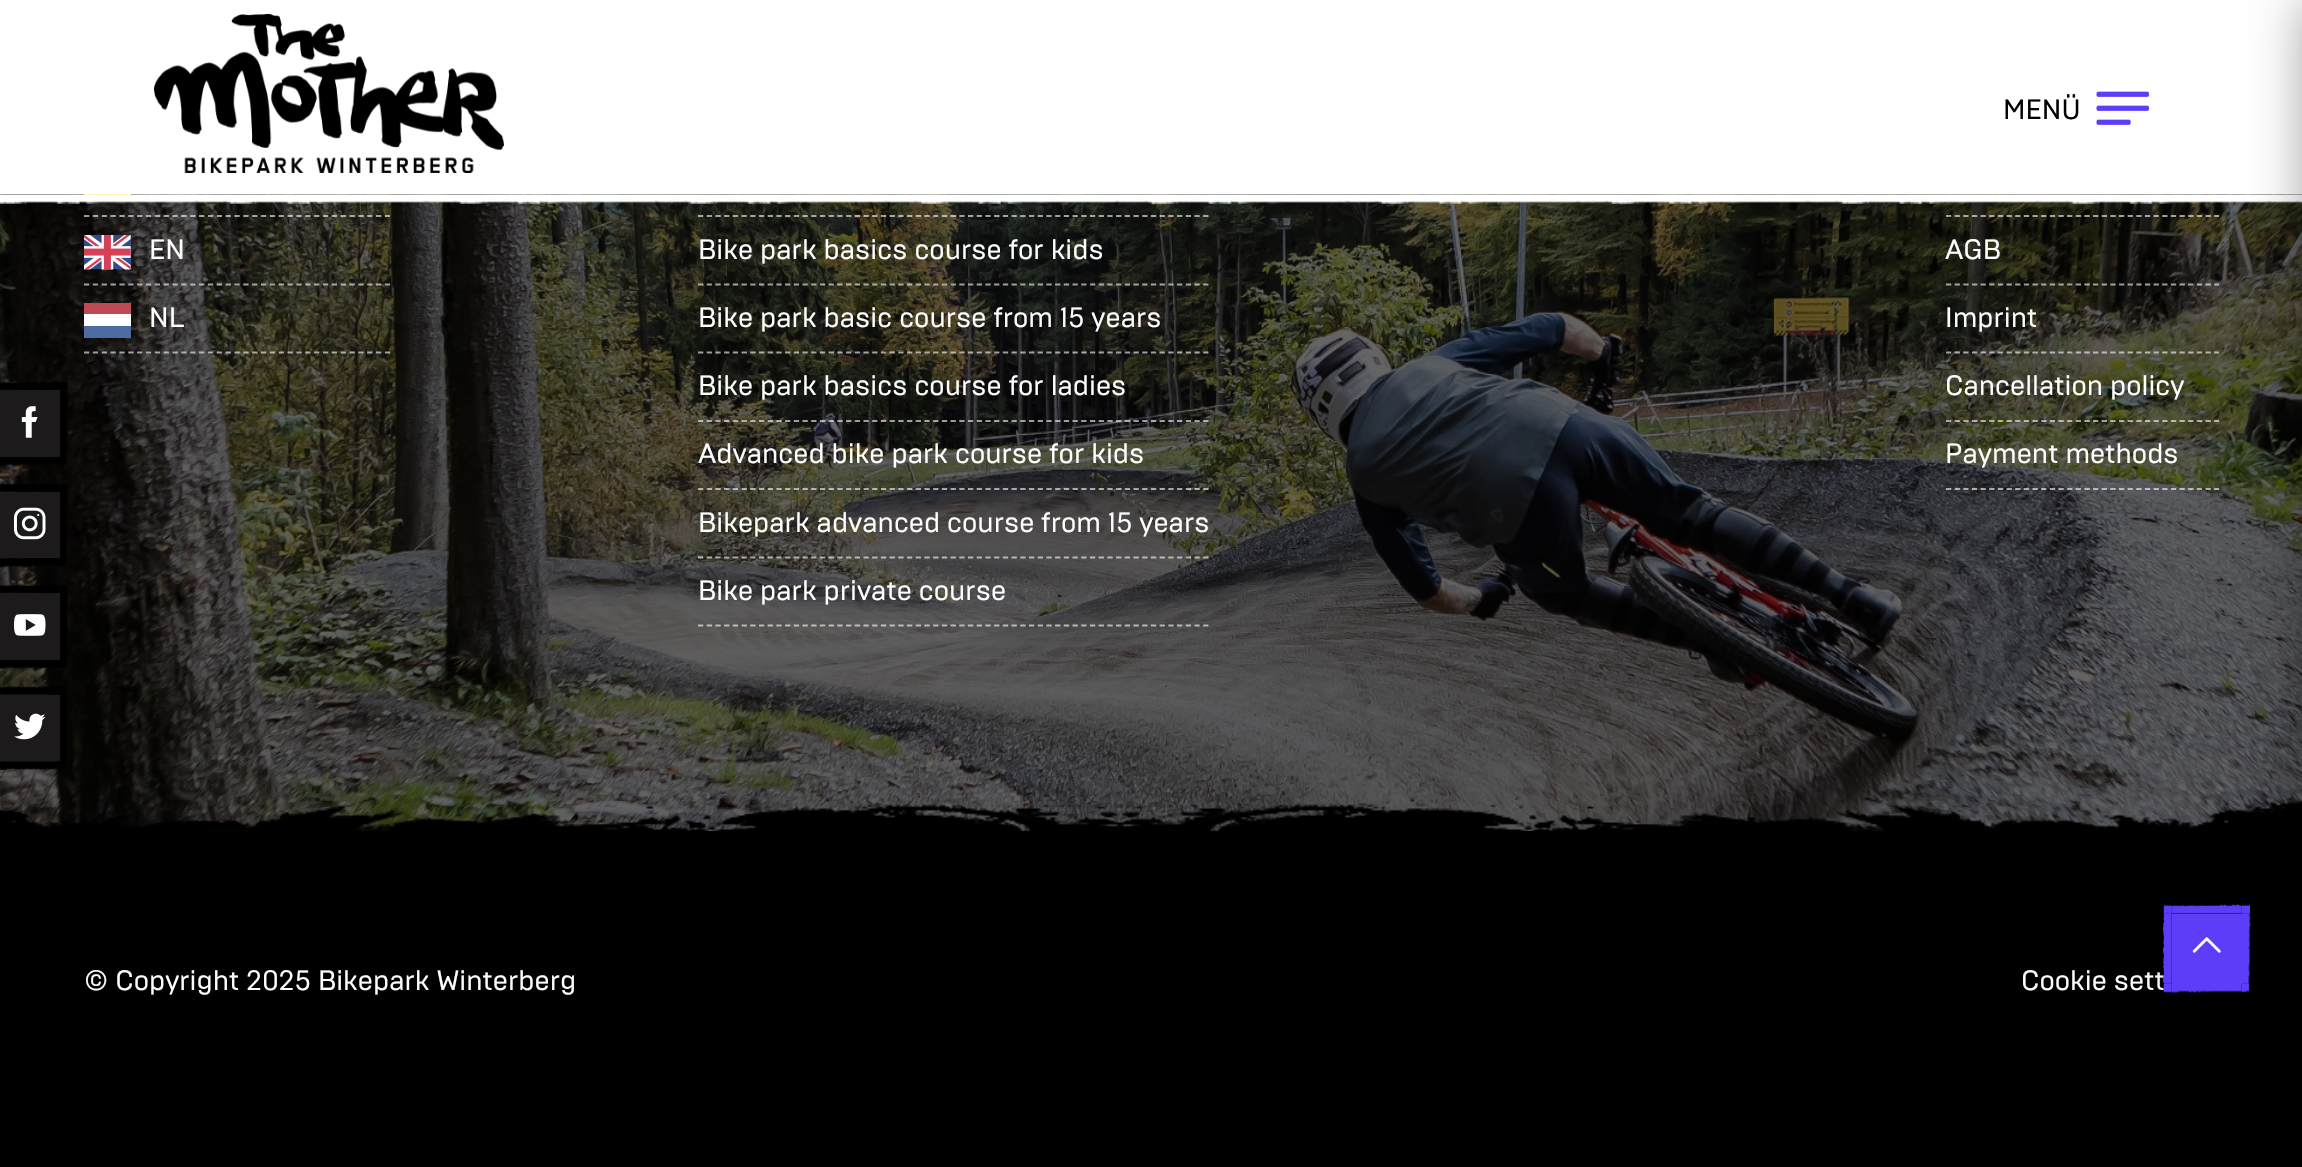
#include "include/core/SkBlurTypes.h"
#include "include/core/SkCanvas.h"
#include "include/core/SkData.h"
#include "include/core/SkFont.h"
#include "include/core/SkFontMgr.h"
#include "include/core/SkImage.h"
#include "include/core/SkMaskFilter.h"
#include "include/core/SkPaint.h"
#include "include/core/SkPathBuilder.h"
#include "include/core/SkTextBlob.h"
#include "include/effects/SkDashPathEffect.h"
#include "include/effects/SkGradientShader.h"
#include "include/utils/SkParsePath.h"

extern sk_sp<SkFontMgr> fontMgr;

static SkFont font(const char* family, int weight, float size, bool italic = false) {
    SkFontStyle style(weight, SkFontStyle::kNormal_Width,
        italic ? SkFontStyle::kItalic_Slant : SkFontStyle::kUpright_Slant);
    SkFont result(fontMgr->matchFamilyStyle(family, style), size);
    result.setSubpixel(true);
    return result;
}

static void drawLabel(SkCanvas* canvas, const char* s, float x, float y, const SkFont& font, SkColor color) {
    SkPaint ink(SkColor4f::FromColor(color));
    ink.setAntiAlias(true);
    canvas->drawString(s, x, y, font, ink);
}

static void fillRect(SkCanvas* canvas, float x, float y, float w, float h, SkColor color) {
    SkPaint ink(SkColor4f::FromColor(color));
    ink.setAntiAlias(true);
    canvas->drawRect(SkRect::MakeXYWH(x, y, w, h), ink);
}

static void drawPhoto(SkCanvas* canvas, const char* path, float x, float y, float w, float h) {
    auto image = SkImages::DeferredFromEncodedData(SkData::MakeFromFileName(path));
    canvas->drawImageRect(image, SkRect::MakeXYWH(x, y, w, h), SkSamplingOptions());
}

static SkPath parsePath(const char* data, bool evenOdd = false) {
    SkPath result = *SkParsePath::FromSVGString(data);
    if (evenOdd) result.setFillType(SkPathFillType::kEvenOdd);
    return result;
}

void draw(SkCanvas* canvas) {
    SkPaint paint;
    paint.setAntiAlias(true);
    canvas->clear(0xFF000000);
    drawPhoto(canvas, "assets/img12.png", 0, 194, 2302, 637);
    fillRect(canvas, 84, 194, 47, 1, 0xFFFFCC00);
    fillRect(canvas, 84, 194, 47, 1, 0x33FFFFFF);
    drawPhoto(canvas, "assets/img1.png", 0, 194, 2302, 10);
    fillRect(canvas, 0, 0, 2302, 194, 0xFFFFFFFF);
    drawPhoto(canvas, "assets/img2.png", 154, 14, 350, 159);
    SkFont font1 = font("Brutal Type", 400, 28);
    drawLabel(canvas, "MENÜ", 2003, 119, font1, 0xFF000000);
    drawPhoto(canvas, "assets/img3.png", 2096, 91, 53, 34);
    drawPhoto(canvas, "assets/img14.png", 0, 796, 2302, 35);
    drawLabel(canvas, "Cookie sett", 2021, 990, font1, 0xFFFFFFFF);
    canvas->save();
    canvas->clipPath(parsePath("M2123 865H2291V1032H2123ZM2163 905H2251V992H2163Z", true), true);
    paint.setColor(0x1A000000);
    paint.setMaskFilter(SkMaskFilter::MakeBlur(kNormal_SkBlurStyle, 13));
    canvas->drawRect(SkRect::MakeXYWH(2163, 905, 88, 87), paint);
    paint.setMaskFilter(nullptr);
    canvas->restore();
    drawPhoto(canvas, "assets/img15.png", 2163, 904, 88, 89);
    fillRect(canvas, 2172, 914, 70, 70, 0xFF5E3DF9);
    paint.setColor(0x59000000);
    paint.setMaskFilter(SkMaskFilter::MakeBlur(kNormal_SkBlurStyle, 26));
    canvas->drawRect(SkRect::MakeXYWH(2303, 0, 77, 1167), paint);
    paint.setMaskFilter(nullptr);
    drawPhoto(canvas, "assets/img4.png", 0, 381, 68, 85);
    fillRect(canvas, 0, 390, 60, 67, 0xFF1C1A1A);
    drawPhoto(canvas, "assets/img5.png", 21, 406, 17, 32);
    drawPhoto(canvas, "assets/img6.png", 0, 483, 68, 85);
    fillRect(canvas, 0, 492, 60, 66, 0xFF1C1A1A);
    drawPhoto(canvas, "assets/img7.png", 14, 507, 32, 33);
    drawPhoto(canvas, "assets/img8.png", 0, 584, 68, 85);
    fillRect(canvas, 0, 593, 60, 67, 0xFF1C1A1A);
    drawPhoto(canvas, "assets/img9.png", 14, 614, 32, 22);
    drawPhoto(canvas, "assets/img10.png", 0, 685, 67, 85);
    fillRect(canvas, 0, 695, 60, 66, 0xFF1C1A1A);
    drawPhoto(canvas, "assets/img11.png", 14, 713, 32, 27);
    paint.setStroke(true);
    paint.setStrokeWidth(1.8f);
    paint.setColor(0x99FFFFFF);
    paint.setPathEffect(SkDashPathEffect::Make({{5.25f, 3.6f}}, 0));
    canvas->drawPath(parsePath("M84 216H390"), paint);
    paint.setPathEffect(nullptr);
    paint.setPathEffect(SkDashPathEffect::Make({{5.25f, 3.6f}}, 0));
    canvas->drawPath(parsePath("M84 284.5H390"), paint);
    paint.setPathEffect(nullptr);
    drawPhoto(canvas, "assets/img13.png", 84, 235, 47, 35);
    drawLabel(canvas, "EN", 149, 259, font1, 0xFFFFFFFF);
    paint.setPathEffect(SkDashPathEffect::Make({{5.25f, 3.6f}}, 0));
    canvas->drawPath(parsePath("M84 352.5H390"), paint);
    paint.setPathEffect(nullptr);
    fillRect(canvas, 84, 303, 47, 11, 0xFFAE1C28);
    fillRect(canvas, 84, 314, 47, 12, 0xFFFFFFFF);
    fillRect(canvas, 84, 326, 47, 12, 0xFF21468B);
    fillRect(canvas, 84, 303, 47, 35, 0x33FFFFFF);
    drawLabel(canvas, "NL", 149, 327, font1, 0xFFFFFFFF);
    paint.setPathEffect(SkDashPathEffect::Make({{5.25f, 3.46f}}, 0));
    canvas->drawPath(parsePath("M698 216H1209"), paint);
    paint.setPathEffect(nullptr);
    paint.setPathEffect(SkDashPathEffect::Make({{5.25f, 3.46f}}, 0));
    canvas->drawPath(parsePath("M698 284.5H1209"), paint);
    paint.setPathEffect(nullptr);
    drawLabel(canvas, "Bike park basics course for kids", 698, 259, font1, 0xFFFFFFFF);
    paint.setPathEffect(SkDashPathEffect::Make({{5.25f, 3.46f}}, 0));
    canvas->drawPath(parsePath("M698 352.5H1209"), paint);
    paint.setPathEffect(nullptr);
    drawLabel(canvas, "Bike park basic course from 15 years", 698, 327, font1, 0xFFFFFFFF);
    paint.setPathEffect(SkDashPathEffect::Make({{5.25f, 3.46f}}, 0));
    canvas->drawPath(parsePath("M698 421H1209"), paint);
    paint.setPathEffect(nullptr);
    drawLabel(canvas, "Bike park basics course for ladies", 698, 395, font1, 0xFFFFFFFF);
    paint.setPathEffect(SkDashPathEffect::Make({{5.25f, 3.46f}}, 0));
    canvas->drawPath(parsePath("M698 489H1209"), paint);
    paint.setPathEffect(nullptr);
    drawLabel(canvas, "Advanced bike park course for kids", 698, 463, font1, 0xFFFFFFFF);
    paint.setPathEffect(SkDashPathEffect::Make({{5.25f, 3.46f}}, 0));
    canvas->drawPath(parsePath("M698 557.5H1209"), paint);
    paint.setPathEffect(nullptr);
    drawLabel(canvas, "Bikepark advanced course from 15 years", 698, 532, font1, 0xFFFFFFFF);
    paint.setPathEffect(SkDashPathEffect::Make({{5.25f, 3.46f}}, 0));
    canvas->drawPath(parsePath("M698 625.5H1209"), paint);
    paint.setPathEffect(nullptr);
    drawLabel(canvas, "Bike park private course", 698, 600, font1, 0xFFFFFFFF);
    paint.setPathEffect(SkDashPathEffect::Make({{5.25f, 3.4f}}, 0));
    canvas->drawPath(parsePath("M1946 216H2219"), paint);
    paint.setPathEffect(nullptr);
    paint.setPathEffect(SkDashPathEffect::Make({{5.25f, 3.4f}}, 0));
    canvas->drawPath(parsePath("M1946 284.5H2219"), paint);
    paint.setPathEffect(nullptr);
    drawLabel(canvas, "AGB", 1945, 259, font1, 0xFFFFFFFF);
    paint.setPathEffect(SkDashPathEffect::Make({{5.25f, 3.4f}}, 0));
    canvas->drawPath(parsePath("M1946 352.5H2219"), paint);
    paint.setPathEffect(nullptr);
    drawLabel(canvas, "Imprint", 1945, 327, font1, 0xFFFFFFFF);
    paint.setPathEffect(SkDashPathEffect::Make({{5.25f, 3.4f}}, 0));
    canvas->drawPath(parsePath("M1946 421H2219"), paint);
    paint.setPathEffect(nullptr);
    drawLabel(canvas, "Cancellation policy", 1945, 395, font1, 0xFFFFFFFF);
    paint.setPathEffect(SkDashPathEffect::Make({{5.25f, 3.4f}}, 0));
    canvas->drawPath(parsePath("M1946 489H2219"), paint);
    paint.setPathEffect(nullptr);
    drawLabel(canvas, "Payment methods", 1945, 463, font1, 0xFFFFFFFF);
    drawLabel(canvas, "© Copyright 2025 Bikepark Winterberg", 84, 990, font1, 0xFFFFFFFF);
    drawPhoto(canvas, "assets/img16.png", 2192, 937, 29, 16);
}
